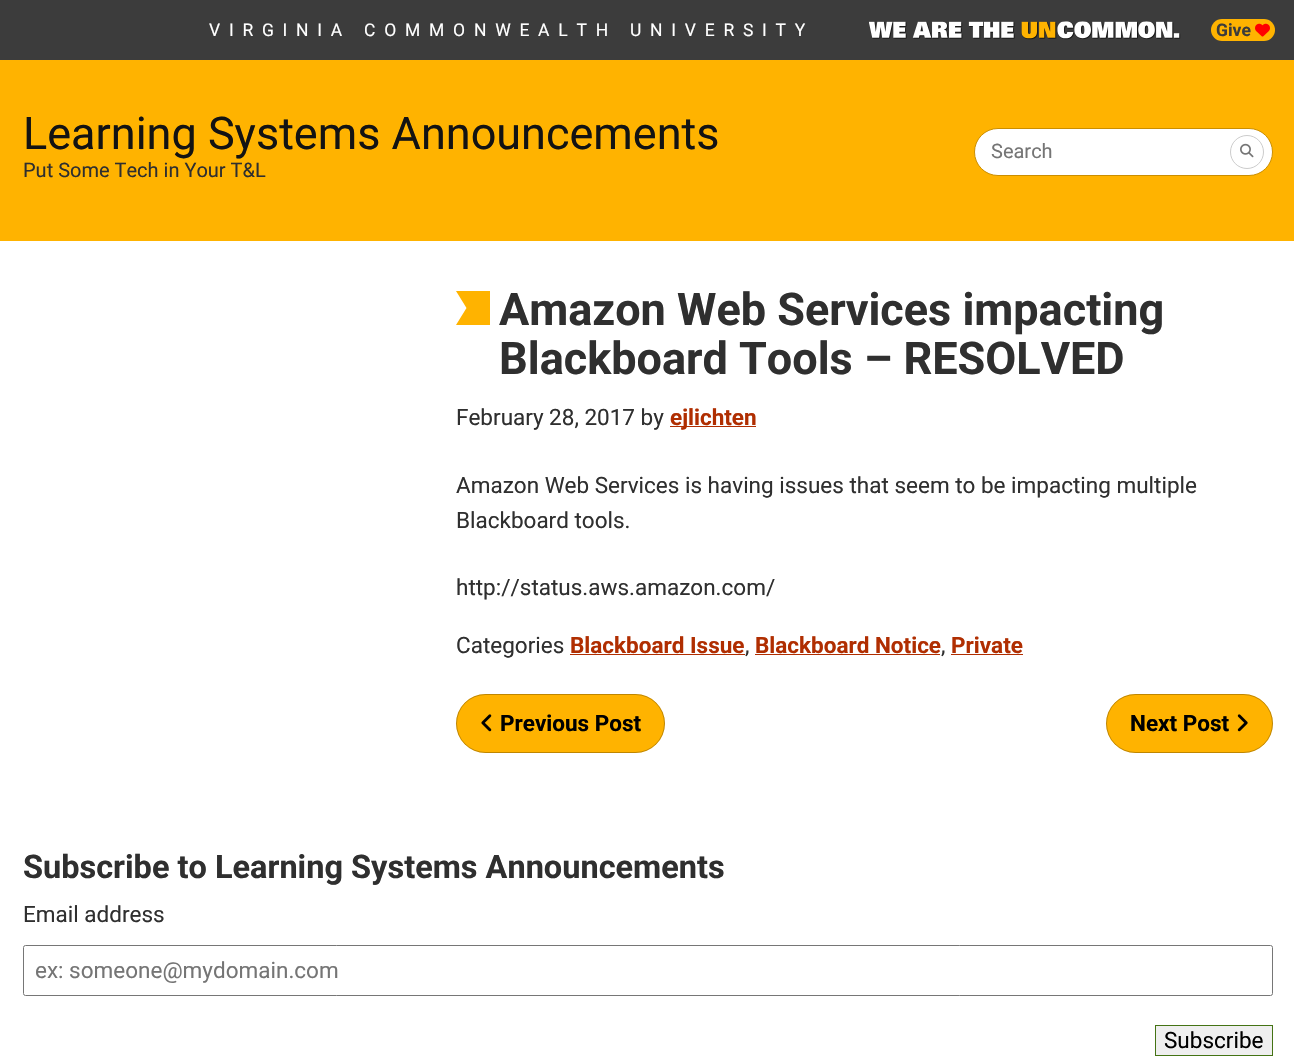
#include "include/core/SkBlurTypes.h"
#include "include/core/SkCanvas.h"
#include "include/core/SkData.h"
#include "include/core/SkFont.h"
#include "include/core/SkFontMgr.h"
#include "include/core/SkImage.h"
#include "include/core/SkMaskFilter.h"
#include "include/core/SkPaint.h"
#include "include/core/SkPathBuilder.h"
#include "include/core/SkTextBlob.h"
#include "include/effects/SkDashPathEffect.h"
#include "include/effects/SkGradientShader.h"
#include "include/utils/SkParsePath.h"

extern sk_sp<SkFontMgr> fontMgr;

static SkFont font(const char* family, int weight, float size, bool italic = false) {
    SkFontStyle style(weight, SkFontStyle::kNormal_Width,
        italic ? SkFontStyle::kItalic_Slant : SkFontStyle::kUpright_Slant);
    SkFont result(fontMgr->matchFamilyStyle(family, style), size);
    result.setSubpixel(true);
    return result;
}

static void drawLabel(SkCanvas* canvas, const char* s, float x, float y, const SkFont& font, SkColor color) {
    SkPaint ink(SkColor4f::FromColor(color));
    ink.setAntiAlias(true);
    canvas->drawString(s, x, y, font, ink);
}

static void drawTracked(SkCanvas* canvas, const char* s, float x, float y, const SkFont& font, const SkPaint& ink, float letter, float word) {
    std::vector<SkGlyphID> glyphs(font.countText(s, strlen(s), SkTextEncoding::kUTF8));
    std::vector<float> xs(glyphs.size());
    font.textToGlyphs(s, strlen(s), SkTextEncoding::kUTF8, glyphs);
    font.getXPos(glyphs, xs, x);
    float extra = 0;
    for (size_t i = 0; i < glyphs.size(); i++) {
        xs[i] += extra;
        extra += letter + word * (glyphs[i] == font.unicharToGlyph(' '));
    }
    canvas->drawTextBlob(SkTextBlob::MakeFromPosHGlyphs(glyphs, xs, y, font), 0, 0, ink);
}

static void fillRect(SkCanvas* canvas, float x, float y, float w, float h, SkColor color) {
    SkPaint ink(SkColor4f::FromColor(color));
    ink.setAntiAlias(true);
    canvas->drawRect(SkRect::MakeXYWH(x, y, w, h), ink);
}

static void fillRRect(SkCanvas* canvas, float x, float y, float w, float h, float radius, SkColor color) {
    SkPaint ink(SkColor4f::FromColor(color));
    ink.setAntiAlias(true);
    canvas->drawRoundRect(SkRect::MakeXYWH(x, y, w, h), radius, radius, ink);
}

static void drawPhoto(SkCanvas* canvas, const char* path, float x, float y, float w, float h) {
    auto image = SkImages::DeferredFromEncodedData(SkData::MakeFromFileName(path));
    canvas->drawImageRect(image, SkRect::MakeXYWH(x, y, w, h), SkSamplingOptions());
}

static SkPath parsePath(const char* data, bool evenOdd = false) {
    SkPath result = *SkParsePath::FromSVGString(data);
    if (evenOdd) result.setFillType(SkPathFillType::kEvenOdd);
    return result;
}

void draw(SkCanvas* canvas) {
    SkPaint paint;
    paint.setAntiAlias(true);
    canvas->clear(0xFFFFFFFF);
    fillRect(canvas, 0, 0, 1294, 60, 0xFF3C3C3C);
    SkFont font1 = font("Roboto", 400, 17.5f);
    paint.setColor(0xFFFFFFFF);
    drawTracked(canvas, "VIRGINIA COMMONWEALTH UNIVERSITY", 209, 36, font1, paint, 8.75f, 0);
    drawPhoto(canvas, "assets/img1.png", 869, 21, 312, 19);
    fillRRect(canvas, 1211, 19, 64, 22, 11, 0xFFFFB300);
    SkFont font2 = font("Roboto", 700, 17.5f);
    drawLabel(canvas, "Give", 1216, 36, font2, 0xFF3C3C3C);
    drawPhoto(canvas, "assets/img2.png", 1255, 23, 15, 14);
    fillRect(canvas, 0, 60, 1294, 181, 0xFFFFB300);
    SkFont font3 = font("Roboto", 400, 45);
    drawLabel(canvas, "Learning Systems Announcements", 23, 149, font3, 0xFF131313);
    SkFont font4 = font("Roboto", 400, 20);
    drawLabel(canvas, "Put Some Tech in Your T&L", 23, 177, font4, 0xFF2F2F2F);
    canvas->drawRoundRect(SkRect::MakeXYWH(974.5f, 128.5f, 298, 47), 23.5f, 23.5f, paint);
    paint.setStroke(true);
    paint.setStrokeWidth(1);
    paint.setColor(0xFFCB8E00);
    canvas->drawRoundRect(SkRect::MakeXYWH(974.5f, 128.5f, 298, 47), 23.5f, 23.5f, paint);
    drawLabel(canvas, "Search", 991, 158, font4, 0xFF757575);
    paint.setColor(0xFFCCCCCC);
    canvas->drawCircle(1247, 152, 16.5f, paint);
    drawPhoto(canvas, "assets/img3.png", 1240, 143, 14, 15);
    paint.setStroke(false);
    paint.setColor(0xFFFFB300);
    canvas->drawPath(parsePath("M456 291L466.5 308L456 325H490V291Z"), paint);
    SkFont font5 = font("Roboto", 700, 45);
    drawLabel(canvas, "Amazon Web Services impacting", 499, 325, font5, 0xFF2F2F2F);
    drawLabel(canvas, "Blackboard Tools – RESOLVED", 499, 374, font5, 0xFF2F2F2F);
    SkFont font6 = font("Roboto", 400, 22.5f);
    drawLabel(canvas, "February 28, 2017 by", 456, 425, font6, 0xFF2F2F2F);
    fillRect(canvas, 670, 426, 86, 1, 0xFFB02E01);
    SkFont font7 = font("Roboto", 700, 22.5f);
    drawLabel(canvas, "ejlichten", 670, 425, font7, 0xFFB02E01);
    drawLabel(canvas, "Amazon Web Services is having issues that seem to be impacting multiple", 456, 493, font6, 0xFF2F2F2F);
    drawLabel(canvas, "Blackboard tools.", 456, 528, font6, 0xFF2F2F2F);
    drawLabel(canvas, "http://status.aws.amazon.com/", 456, 595, font6, 0xFF2F2F2F);
    drawLabel(canvas, "Categories", 456, 653, font6, 0xFF2F2F2F);
    drawLabel(canvas, "Blackboard Issue", 570, 653, font7, 0xFFB02E01);
    fillRect(canvas, 570, 654, 175, 1, 0xFFB02E01);
    drawLabel(canvas, ",", 745, 653, font6, 0xFF2F2F2F);
    drawLabel(canvas, "Blackboard Notice", 755, 653, font7, 0xFFB02E01);
    drawLabel(canvas, ",", 941, 653, font6, 0xFF2F2F2F);
    fillRect(canvas, 755, 654, 185, 1, 0xFFB02E01);
    fillRect(canvas, 951, 654, 72, 1, 0xFFB02E01);
    drawLabel(canvas, "Private", 951, 653, font7, 0xFFB02E01);
    fillRRect(canvas, 456, 694, 209, 59, 29.5f, 0xFFFFB300);
    paint.setStroke(true);
    paint.setColor(0x40000000);
    canvas->drawRoundRect(SkRect::MakeXYWH(456.5f, 694.5f, 208, 58), 29, 29, paint);
    drawPhoto(canvas, "assets/img4.png", 481, 714, 11, 18);
    drawLabel(canvas, "Previous Post", 500, 731, font7, 0xFF000000);
    fillRRect(canvas, 1106, 694, 167, 59, 29.5f, 0xFFFFB300);
    canvas->drawRoundRect(SkRect::MakeXYWH(1106.5f, 694.5f, 166, 58), 29, 29, paint);
    drawLabel(canvas, "Next Post", 1130, 731, font7, 0xFF000000);
    drawPhoto(canvas, "assets/img5.png", 1237, 714, 11, 18);
    SkFont font8 = font("Roboto", 700, 32.5f);
    drawLabel(canvas, "Subscribe to Learning Systems Announcements", 23, 878, font8, 0xFF2F2F2F);
    drawLabel(canvas, "Email address", 23, 922, font6, 0xFF2F2F2F);
    paint.setColor(0xFF767676);
    canvas->drawRoundRect(SkRect::MakeXYWH(23.5f, 945.5f, 1249, 50), 2, 2, paint);
    drawLabel(canvas, "ex: someone@mydomain.com", 35, 978, font6, 0xFF757575);
    paint.setStroke(false);
    paint.setColor(0xFFEFEFEF);
    canvas->drawRect(SkRect::MakeXYWH(1155.5f, 1025.5f, 117, 30), paint);
    paint.setStroke(true);
    paint.setColor(0xFF447314);
    canvas->drawRect(SkRect::MakeXYWH(1155.5f, 1025.5f, 117, 30), paint);
    drawLabel(canvas, "Subscribe", 1164, 1048, font6, 0xFF000000);
}
